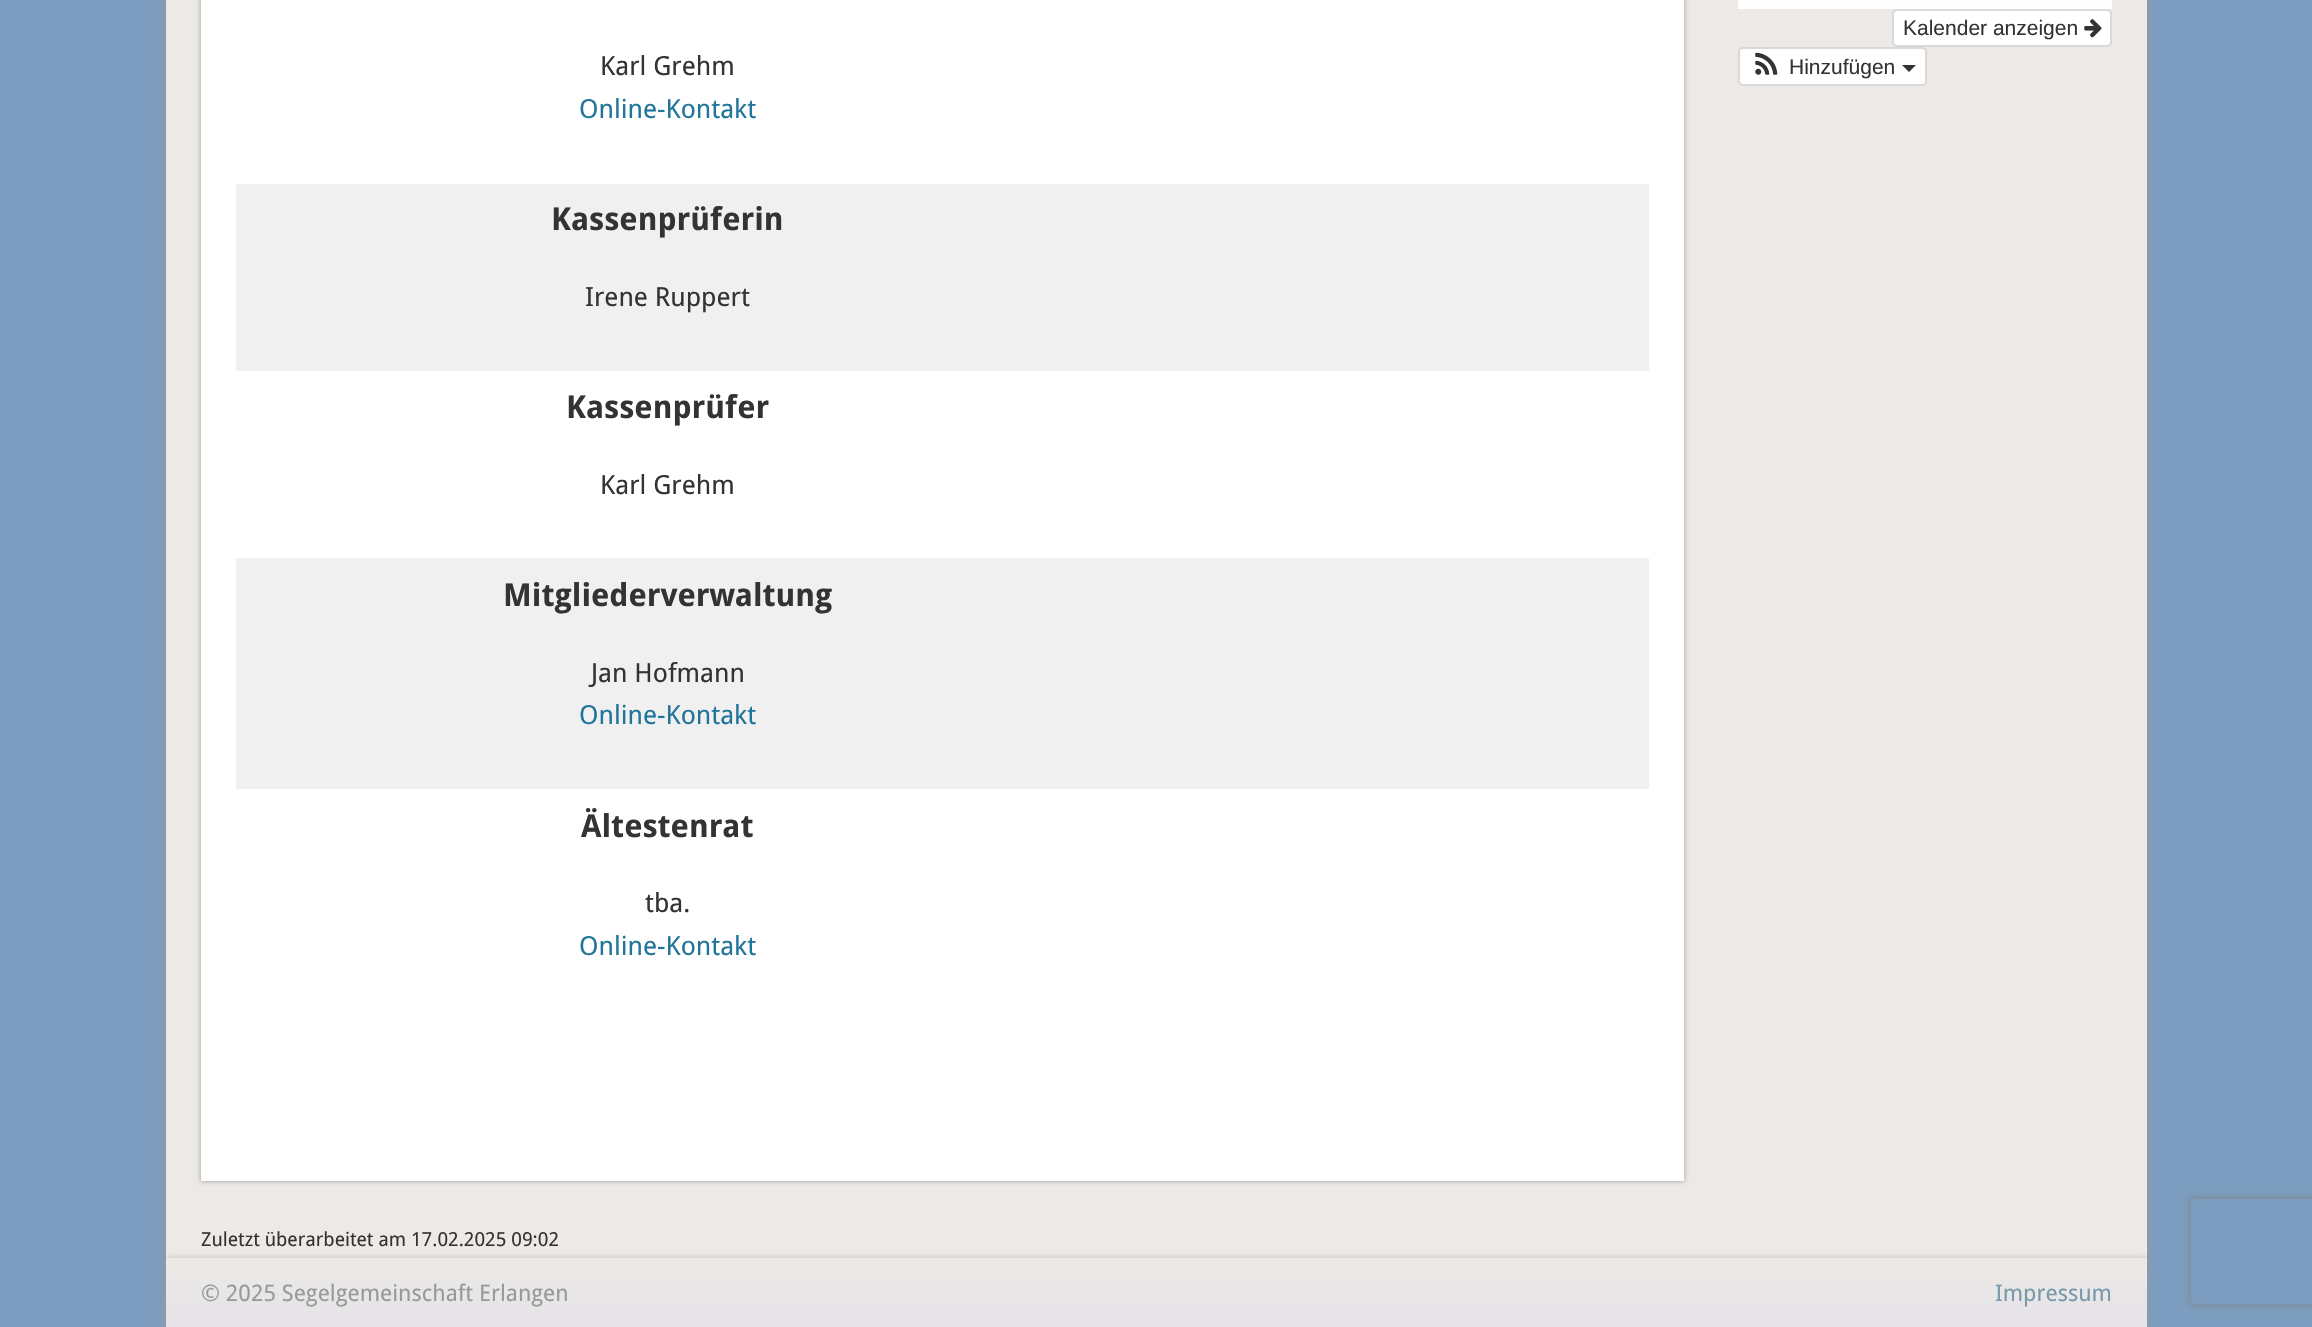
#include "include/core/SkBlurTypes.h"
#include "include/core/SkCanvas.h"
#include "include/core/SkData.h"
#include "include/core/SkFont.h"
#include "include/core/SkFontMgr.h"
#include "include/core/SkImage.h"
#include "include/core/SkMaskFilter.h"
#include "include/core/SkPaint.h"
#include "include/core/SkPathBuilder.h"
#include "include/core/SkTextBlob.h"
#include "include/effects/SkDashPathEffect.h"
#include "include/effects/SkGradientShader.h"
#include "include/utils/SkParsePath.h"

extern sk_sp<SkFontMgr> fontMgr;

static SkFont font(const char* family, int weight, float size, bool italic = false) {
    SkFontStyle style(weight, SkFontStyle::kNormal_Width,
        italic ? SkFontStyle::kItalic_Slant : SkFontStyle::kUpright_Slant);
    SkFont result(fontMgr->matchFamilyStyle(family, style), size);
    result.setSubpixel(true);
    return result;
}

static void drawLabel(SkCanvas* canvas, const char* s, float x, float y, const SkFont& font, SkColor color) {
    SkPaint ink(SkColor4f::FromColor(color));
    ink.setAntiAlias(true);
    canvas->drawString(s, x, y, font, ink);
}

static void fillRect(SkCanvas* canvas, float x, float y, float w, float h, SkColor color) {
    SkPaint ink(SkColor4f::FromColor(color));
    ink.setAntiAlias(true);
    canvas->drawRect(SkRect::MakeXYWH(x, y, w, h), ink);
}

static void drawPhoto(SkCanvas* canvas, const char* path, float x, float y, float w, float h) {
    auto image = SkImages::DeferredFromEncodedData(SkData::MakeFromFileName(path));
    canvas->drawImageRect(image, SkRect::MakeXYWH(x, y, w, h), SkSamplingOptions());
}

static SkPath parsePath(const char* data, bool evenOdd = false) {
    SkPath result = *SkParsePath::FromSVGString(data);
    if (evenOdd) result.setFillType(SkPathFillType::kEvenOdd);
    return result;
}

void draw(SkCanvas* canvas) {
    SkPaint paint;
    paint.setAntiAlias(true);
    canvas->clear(0xFF7C9DBF);
    paint.setColor(0xFF999999);
    paint.setMaskFilter(SkMaskFilter::MakeBlur(kNormal_SkBlurStyle, 5));
    canvas->drawRect(SkRect::MakeXYWH(166, -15, 1981, 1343), paint);
    paint.setMaskFilter(nullptr);
    fillRect(canvas, 166, 0, 1981, 1258, 0xFFECE9E6);
    {
        const SkColor colors[] = {0xFFF2F2F2, 0xFFF2F2F2, 0xFFFFFFFF};
        const float stops[] = {0, 0.18f, 1};
        const SkPoint ends[] = {{1925, -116}, {1925, 9}};
        paint.setShader(SkGradientShader::MakeLinear(ends, colors, stops, 3, SkTileMode::kClamp));
        paint.setAlpha(255);
    }
    canvas->drawRect(SkRect::MakeXYWH(1738, 0, 374, 9), paint);
    paint.setShader(nullptr);
    paint.setColor(0xFFFFFFFF);
    canvas->drawRoundRect(SkRect::MakeXYWH(1893, 10, 218, 36), 4, 4, paint);
    paint.setStroke(true);
    paint.setStrokeWidth(2);
    paint.setColor(0xFFD9D9D9);
    canvas->drawRoundRect(SkRect::MakeXYWH(1893, 10, 218, 36), 4, 4, paint);
    SkFont font1 = font("Liberation Sans", 400, 21);
    drawLabel(canvas, "Kalender anzeigen", 1903, 35, font1, 0xFF333333);
    drawPhoto(canvas, "assets/img1.png", 2084, 19, 18, 19);
    paint.setStroke(false);
    paint.setColor(0xFFFFFFFF);
    canvas->drawRoundRect(SkRect::MakeXYWH(1739, 48, 187, 37), 4, 4, paint);
    paint.setStroke(true);
    paint.setColor(0xFFD9D9D9);
    canvas->drawRoundRect(SkRect::MakeXYWH(1739, 48, 187, 37), 4, 4, paint);
    drawPhoto(canvas, "assets/img2.png", 1755, 52, 23, 23);
    drawLabel(canvas, "Hinzufügen", 1789, 74, font1, 0xFF333333);
    paint.setStroke(false);
    paint.setColor(0xFF333333);
    canvas->drawPath(parsePath("M1902 65H1916L1909 72Z"), paint);
    paint.setColor(0xFF999999);
    paint.setMaskFilter(SkMaskFilter::MakeBlur(kNormal_SkBlurStyle, 2.5f));
    canvas->drawRect(SkRect::MakeXYWH(201, -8, 1483, 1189), paint);
    paint.setMaskFilter(nullptr);
    fillRect(canvas, 201, 0, 1483, 1181, 0xFFFFFFFF);
    SkFont font2 = font("Droid Sans", 400, 26.25f);
    drawLabel(canvas, "Karl Grehm", 600, 75, font2, 0xFF333333);
    drawLabel(canvas, "Online-Kontakt", 579, 118, font2, 0xFF21759B);
    fillRect(canvas, 236, 184, 1413, 187, 0xFFF0F0F0);
    SkFont font3 = font("Droid Sans", 700, 31.5f);
    drawLabel(canvas, "Kassenprüferin", 551, 230, font3, 0xFF333333);
    drawLabel(canvas, "Irene Ruppert", 585, 306, font2, 0xFF333333);
    drawLabel(canvas, "Kassenprüfer", 566, 418, font3, 0xFF333333);
    drawLabel(canvas, "Karl Grehm", 600, 494, font2, 0xFF333333);
    fillRect(canvas, 236, 558, 1413, 231, 0xFFF0F0F0);
    drawLabel(canvas, "Mitgliederverwaltung", 503, 606, font3, 0xFF333333);
    drawLabel(canvas, "Jan Hofmann", 591, 682, font2, 0xFF333333);
    drawLabel(canvas, "Online-Kontakt", 579, 724, font2, 0xFF21759B);
    drawLabel(canvas, "Ältestenrat", 581, 837, font3, 0xFF333333);
    drawLabel(canvas, "tba.", 645, 912, font2, 0xFF333333);
    drawLabel(canvas, "Online-Kontakt", 579, 955, font2, 0xFF21759B);
    SkFont font4 = font("Droid Sans", 400, 19.3f);
    drawLabel(canvas, "Zuletzt überarbeitet am 17.02.2025 09:02", 201, 1246, font4, 0xFF333333);
    canvas->save();
    canvas->clipRect(SkRect::MakeXYWH(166, 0, 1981, 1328));
    paint.setColor(0xFFCCCCCC);
    paint.setMaskFilter(SkMaskFilter::MakeBlur(kNormal_SkBlurStyle, 2.5f));
    canvas->drawRect(SkRect::MakeXYWH(166, 1257, 1981, 70), paint);
    paint.setMaskFilter(nullptr);
    canvas->restore();
    {
        const SkColor colors[] = {0xFFECE9E6, 0xFFE6E3E9};
        const float stops[] = {0, 1};
        const SkPoint ends[] = {{1157, 1258}, {1157, 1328}};
        paint.setShader(SkGradientShader::MakeLinear(ends, colors, stops, 2, SkTileMode::kClamp));
        paint.setAlpha(255);
    }
    canvas->drawRect(SkRect::MakeXYWH(166, 1258, 1981, 69), paint);
    SkFont font5 = font("Droid Sans", 400, 22.75f);
    drawLabel(canvas, "© 2025 Segelgemeinschaft Erlangen", 201, 1301, font5, 0xFF999999);
    drawLabel(canvas, "Impressum", 1995, 1301, font5, 0xFF7799AA);
    canvas->save();
    canvas->clipPath(parsePath("M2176 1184H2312V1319H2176ZM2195 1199H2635C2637 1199 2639 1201 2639 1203V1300C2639 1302 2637 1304 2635 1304H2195C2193 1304 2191 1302 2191 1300V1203C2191 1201 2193 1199 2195 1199Z", true), true);
    paint.setShader(nullptr);
    paint.setColor(0xFF808080);
    paint.setMaskFilter(SkMaskFilter::MakeBlur(kNormal_SkBlurStyle, 4.5f));
    canvas->drawRoundRect(SkRect::MakeXYWH(2191, 1199, 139, 105), 4, 4, paint);
    paint.setMaskFilter(nullptr);
    canvas->restore();
}
